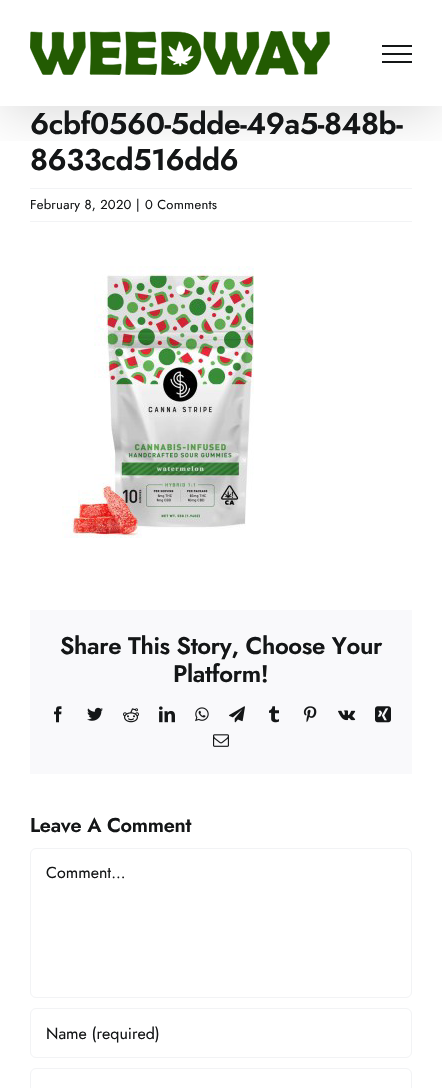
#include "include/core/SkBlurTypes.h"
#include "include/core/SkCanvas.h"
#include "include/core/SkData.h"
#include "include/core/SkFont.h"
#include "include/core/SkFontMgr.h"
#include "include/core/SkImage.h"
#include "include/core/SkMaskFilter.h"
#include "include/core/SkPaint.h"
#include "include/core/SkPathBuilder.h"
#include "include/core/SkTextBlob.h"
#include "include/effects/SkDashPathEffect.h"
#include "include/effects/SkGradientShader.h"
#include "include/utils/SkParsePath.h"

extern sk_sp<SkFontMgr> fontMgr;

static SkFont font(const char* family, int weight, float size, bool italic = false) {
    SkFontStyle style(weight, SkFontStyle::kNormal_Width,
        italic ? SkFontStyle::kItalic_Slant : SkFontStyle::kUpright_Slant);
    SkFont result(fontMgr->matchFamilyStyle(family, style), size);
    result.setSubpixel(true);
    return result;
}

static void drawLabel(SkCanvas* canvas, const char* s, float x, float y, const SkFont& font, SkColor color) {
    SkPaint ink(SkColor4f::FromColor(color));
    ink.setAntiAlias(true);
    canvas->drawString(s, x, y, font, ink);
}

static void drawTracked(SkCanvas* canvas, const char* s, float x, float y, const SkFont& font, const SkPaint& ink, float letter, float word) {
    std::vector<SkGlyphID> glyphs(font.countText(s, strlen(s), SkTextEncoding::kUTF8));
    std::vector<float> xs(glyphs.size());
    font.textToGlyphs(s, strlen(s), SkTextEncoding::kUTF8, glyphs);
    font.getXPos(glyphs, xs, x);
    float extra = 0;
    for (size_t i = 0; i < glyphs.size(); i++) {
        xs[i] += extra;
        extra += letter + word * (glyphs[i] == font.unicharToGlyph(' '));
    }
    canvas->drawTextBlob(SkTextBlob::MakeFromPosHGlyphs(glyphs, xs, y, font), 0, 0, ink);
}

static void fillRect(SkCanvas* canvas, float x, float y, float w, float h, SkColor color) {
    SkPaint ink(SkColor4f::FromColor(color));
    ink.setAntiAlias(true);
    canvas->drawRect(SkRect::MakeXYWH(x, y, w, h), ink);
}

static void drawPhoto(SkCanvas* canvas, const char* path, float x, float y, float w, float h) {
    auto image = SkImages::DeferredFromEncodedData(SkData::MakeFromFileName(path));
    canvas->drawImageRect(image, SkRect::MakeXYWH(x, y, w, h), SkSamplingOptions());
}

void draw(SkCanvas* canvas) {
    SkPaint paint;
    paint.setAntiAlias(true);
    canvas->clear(0xFFFFFFFF);
    fillRect(canvas, 30, 188, 382, 1, 0xFFF2F3F5);
    canvas->save();
    canvas->clipRect(SkRect::MakeXYWH(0, 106, 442, 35));
    paint.setColor(0x24000000);
    paint.setMaskFilter(SkMaskFilter::MakeBlur(kNormal_SkBlurStyle, 25));
    canvas->drawRect(SkRect::MakeXYWH(2, 12, 438, 102), paint);
    paint.setMaskFilter(nullptr);
    canvas->restore();
    drawPhoto(canvas, "assets/img1.png", 30, 31, 300, 44);
    fillRect(canvas, 382, 45, 30, 2, 0xFF141617);
    fillRect(canvas, 382, 53, 30, 2, 0xFF141617);
    fillRect(canvas, 382, 61, 30, 2, 0xFF141617);
    SkFont font1 = font("Jost", 600, 30);
    paint.setColor(0xFF141617);
    drawTracked(canvas, "6cbf0560-5dde-49a5-848b-", 30, 134, font1, paint, -0.45f, 0);
    drawTracked(canvas, "8633cd516dd6", 30, 170, font1, paint, -0.45f, 0);
    fillRect(canvas, 30, 221, 382, 1, 0xFFF2F3F5);
    SkFont font2 = font("Jost", 400, 13);
    drawTracked(canvas, "February 8, 2020", 30, 209, font2, paint, 0.25f, 0);
    drawTracked(canvas, "|", 136, 209, font2, paint, 0.25f, 0);
    drawTracked(canvas, "0 Comments", 145, 209, font2, paint, 0.25f, 0);
    drawPhoto(canvas, "assets/img2.png", 62, 266, 192, 272);
    fillRect(canvas, 30, 610, 382, 164, 0xFFF9F9FB);
    SkFont font3 = font("Jost", 600, 24);
    drawTracked(canvas, "Share This Story, Choose Your", 60, 654, font3, paint, -0.35f, 0);
    drawTracked(canvas, "Platform!", 173, 682, font3, paint, -0.35f, 0);
    drawPhoto(canvas, "assets/img3.png", 54, 706, 8, 17);
    drawPhoto(canvas, "assets/img4.png", 87, 707, 16, 14);
    drawPhoto(canvas, "assets/img5.png", 123, 708, 16, 15);
    drawPhoto(canvas, "assets/img6.png", 159, 706, 16, 17);
    drawPhoto(canvas, "assets/img7.png", 195, 707, 14, 15);
    drawPhoto(canvas, "assets/img8.png", 229, 706, 16, 17);
    drawPhoto(canvas, "assets/img9.png", 269, 706, 10, 17);
    drawPhoto(canvas, "assets/img10.png", 303, 706, 14, 17);
    drawPhoto(canvas, "assets/img11.png", 338, 710, 18, 11);
    drawPhoto(canvas, "assets/img12.png", 375, 706, 16, 17);
    drawPhoto(canvas, "assets/img13.png", 213, 734, 16, 13);
    SkFont font4 = font("Jost", 600, 20);
    drawTracked(canvas, "Leave A Comment", 30, 832, font4, paint, -0.25f, 0);
    paint.setStroke(true);
    paint.setStrokeWidth(1);
    paint.setColor(0xFFF2F3F5);
    canvas->drawRoundRect(SkRect::MakeXYWH(30.5f, 848.5f, 381, 149), 5.5f, 5.5f, paint);
    SkFont font5 = font("Jost", 400, 16);
    drawLabel(canvas, "Comment...", 46, 878, font5, 0xFF141617);
    canvas->drawRoundRect(SkRect::MakeXYWH(30.5f, 1008.5f, 381, 49), 5.5f, 5.5f, paint);
    drawLabel(canvas, "Name (required)", 46, 1039, font5, 0xFF141617);
    canvas->drawRoundRect(SkRect::MakeXYWH(30.5f, 1068.5f, 381, 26), 5.5f, 5.5f, paint);
}
